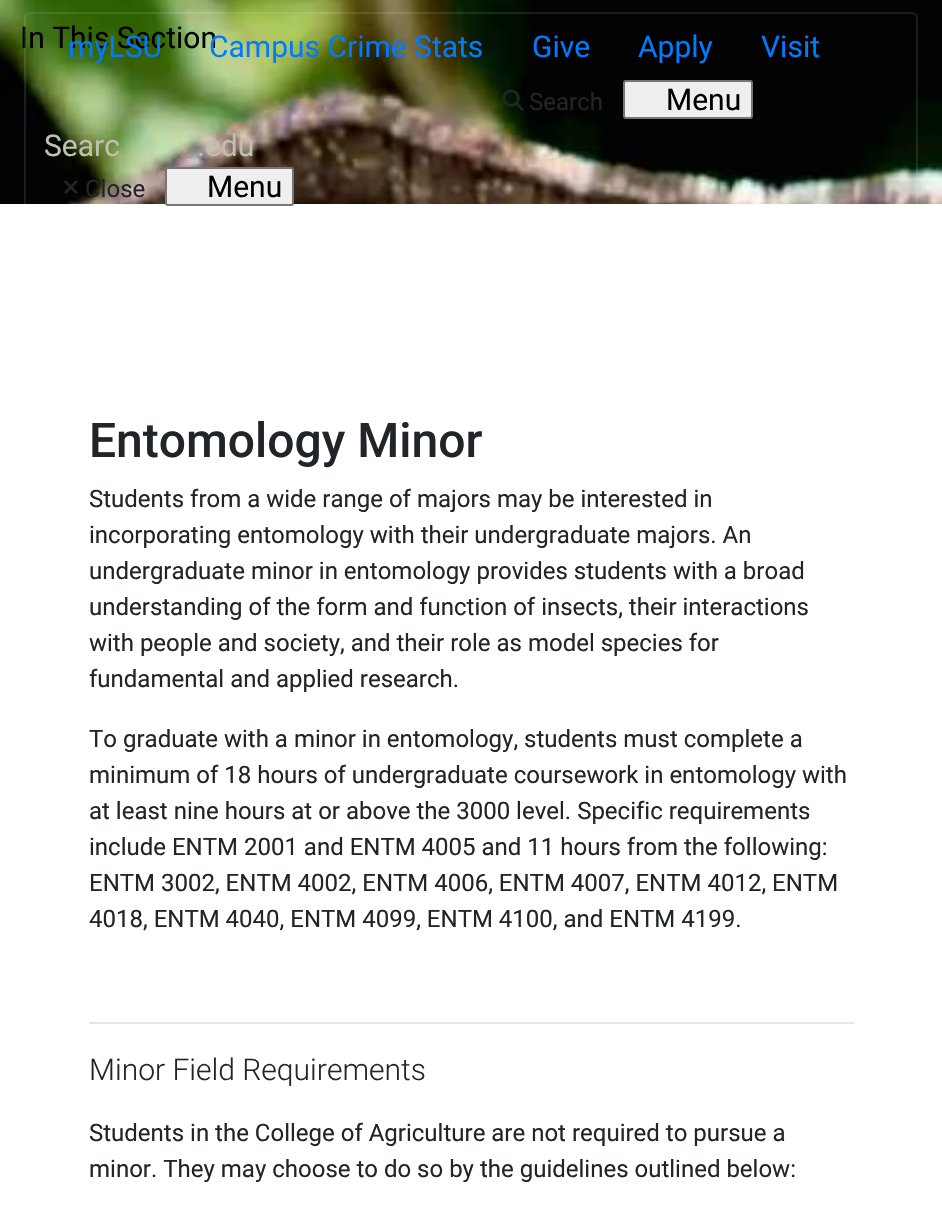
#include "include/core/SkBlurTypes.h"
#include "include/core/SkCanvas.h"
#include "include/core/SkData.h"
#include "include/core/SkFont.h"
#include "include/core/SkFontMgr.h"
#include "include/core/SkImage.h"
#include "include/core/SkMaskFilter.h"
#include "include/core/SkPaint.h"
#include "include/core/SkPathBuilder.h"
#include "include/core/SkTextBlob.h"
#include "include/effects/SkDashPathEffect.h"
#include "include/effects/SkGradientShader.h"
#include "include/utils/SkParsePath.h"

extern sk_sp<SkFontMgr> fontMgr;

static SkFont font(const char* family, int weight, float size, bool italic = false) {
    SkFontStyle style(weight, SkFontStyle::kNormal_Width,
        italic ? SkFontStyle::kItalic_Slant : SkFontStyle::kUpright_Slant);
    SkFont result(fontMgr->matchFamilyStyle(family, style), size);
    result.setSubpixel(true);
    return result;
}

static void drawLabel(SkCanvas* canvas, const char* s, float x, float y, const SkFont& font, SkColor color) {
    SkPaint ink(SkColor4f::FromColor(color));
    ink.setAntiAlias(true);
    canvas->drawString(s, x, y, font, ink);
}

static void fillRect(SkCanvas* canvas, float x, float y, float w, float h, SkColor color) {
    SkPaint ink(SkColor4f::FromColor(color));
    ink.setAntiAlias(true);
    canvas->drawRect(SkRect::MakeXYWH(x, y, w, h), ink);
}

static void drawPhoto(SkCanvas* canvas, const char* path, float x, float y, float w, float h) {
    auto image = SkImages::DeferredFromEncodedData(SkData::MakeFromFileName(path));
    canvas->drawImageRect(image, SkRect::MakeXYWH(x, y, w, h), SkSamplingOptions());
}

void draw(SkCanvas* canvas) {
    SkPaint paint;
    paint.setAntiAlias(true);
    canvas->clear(0xFFFFFFFF);
    drawPhoto(canvas, "assets/img1.png", 0, 0, 942, 204);
    SkFont font1 = font("Roboto", 400, 30);
    drawLabel(canvas, "In This Section", 20, 48, font1, 0xFF000000);
    SkFont font2 = font("Roboto", 500, 48);
    drawLabel(canvas, "Entomology Minor", 89, 457, font2, 0xFF212529);
    SkFont font3 = font("Roboto", 400, 24);
    drawLabel(canvas, "Students from a wide range of majors may be interested in", 89, 507, font3, 0xFF212529);
    drawLabel(canvas, "incorporating entomology with their undergraduate majors. An", 89, 543, font3, 0xFF212529);
    drawLabel(canvas, "undergraduate minor in entomology provides students with a broad", 89, 579, font3, 0xFF212529);
    drawLabel(canvas, "understanding of the form and function of insects, their interactions", 89, 615, font3, 0xFF212529);
    drawLabel(canvas, "with people and society, and their role as model species for", 89, 651, font3, 0xFF212529);
    drawLabel(canvas, "fundamental and applied research.", 89, 687, font3, 0xFF212529);
    drawLabel(canvas, "To graduate with a minor in entomology, students must complete a", 89, 747, font3, 0xFF212529);
    drawLabel(canvas, "minimum of 18 hours of undergraduate coursework in entomology with", 89, 783, font3, 0xFF212529);
    drawLabel(canvas, "at least nine hours at or above the 3000 level. Specific requirements", 89, 819, font3, 0xFF212529);
    drawLabel(canvas, "include ENTM 2001 and ENTM 4005 and 11 hours from the following:", 89, 855, font3, 0xFF212529);
    drawLabel(canvas, "ENTM 3002, ENTM 4002, ENTM 4006, ENTM 4007, ENTM 4012, ENTM", 89, 891, font3, 0xFF212529);
    drawLabel(canvas, "4018, ENTM 4040, ENTM 4099, ENTM 4100, and ENTM 4199.", 89, 927, font3, 0xFF212529);
    fillRect(canvas, 89, 1022, 765, 2, 0xFFE6E6E6);
    SkFont font4 = font("Roboto", 300, 30);
    drawLabel(canvas, "Minor Field Requirements", 89, 1080, font4, 0xFF212529);
    drawLabel(canvas, "Students in the College of Agriculture are not required to pursue a", 89, 1141, font3, 0xFF212529);
    drawLabel(canvas, "minor. They may choose to do so by the guidelines outlined below:", 89, 1177, font3, 0xFF212529);
    paint.setStroke(true);
    paint.setStrokeWidth(2);
    paint.setColor(0x1AFFFFFF);
    canvas->drawRoundRect(SkRect::MakeXYWH(25, 13, 892, 211), 5, 5, paint);
    drawLabel(canvas, "myLSU", 68, 57, font1, 0xFF007BFF);
    drawLabel(canvas, "Campus Crime Stats", 209, 57, font1, 0xFF007BFF);
    drawLabel(canvas, "Give", 532, 57, font1, 0xFF007BFF);
    drawLabel(canvas, "Apply", 638, 57, font1, 0xFF007BFF);
    drawLabel(canvas, "Visit", 761, 57, font1, 0xFF007BFF);
    drawPhoto(canvas, "assets/img2.png", 502, 89, 22, 22);
    drawLabel(canvas, "Search", 529, 110, font3, 0xFF212529);
    paint.setStroke(false);
    paint.setColor(0xFFEFEFEF);
    canvas->drawRoundRect(SkRect::MakeXYWH(624, 81, 128, 37), 2, 2, paint);
    paint.setStroke(true);
    paint.setColor(0xFF767676);
    canvas->drawRoundRect(SkRect::MakeXYWH(624, 81, 128, 37), 2, 2, paint);
    drawLabel(canvas, "Menu", 666, 110, font1, 0xFF000000);
    drawLabel(canvas, "Searc", 44, 156, font1, 0xFFBDC1B0);
    drawLabel(canvas, ".edu", 197, 156, font1, 0xFFBDC1B0);
    drawPhoto(canvas, "assets/img3.png", 64, 180, 14, 14);
    drawLabel(canvas, "Close", 85, 197, font3, 0xFF212529);
    paint.setStroke(false);
    paint.setColor(0xFFEFEFEF);
    canvas->drawRoundRect(SkRect::MakeXYWH(166, 168, 127, 37), 2, 2, paint);
    paint.setStroke(true);
    paint.setColor(0xFF767676);
    canvas->drawRoundRect(SkRect::MakeXYWH(166, 168, 127, 37), 2, 2, paint);
    drawLabel(canvas, "Menu", 207, 197, font1, 0xFF000000);
}
